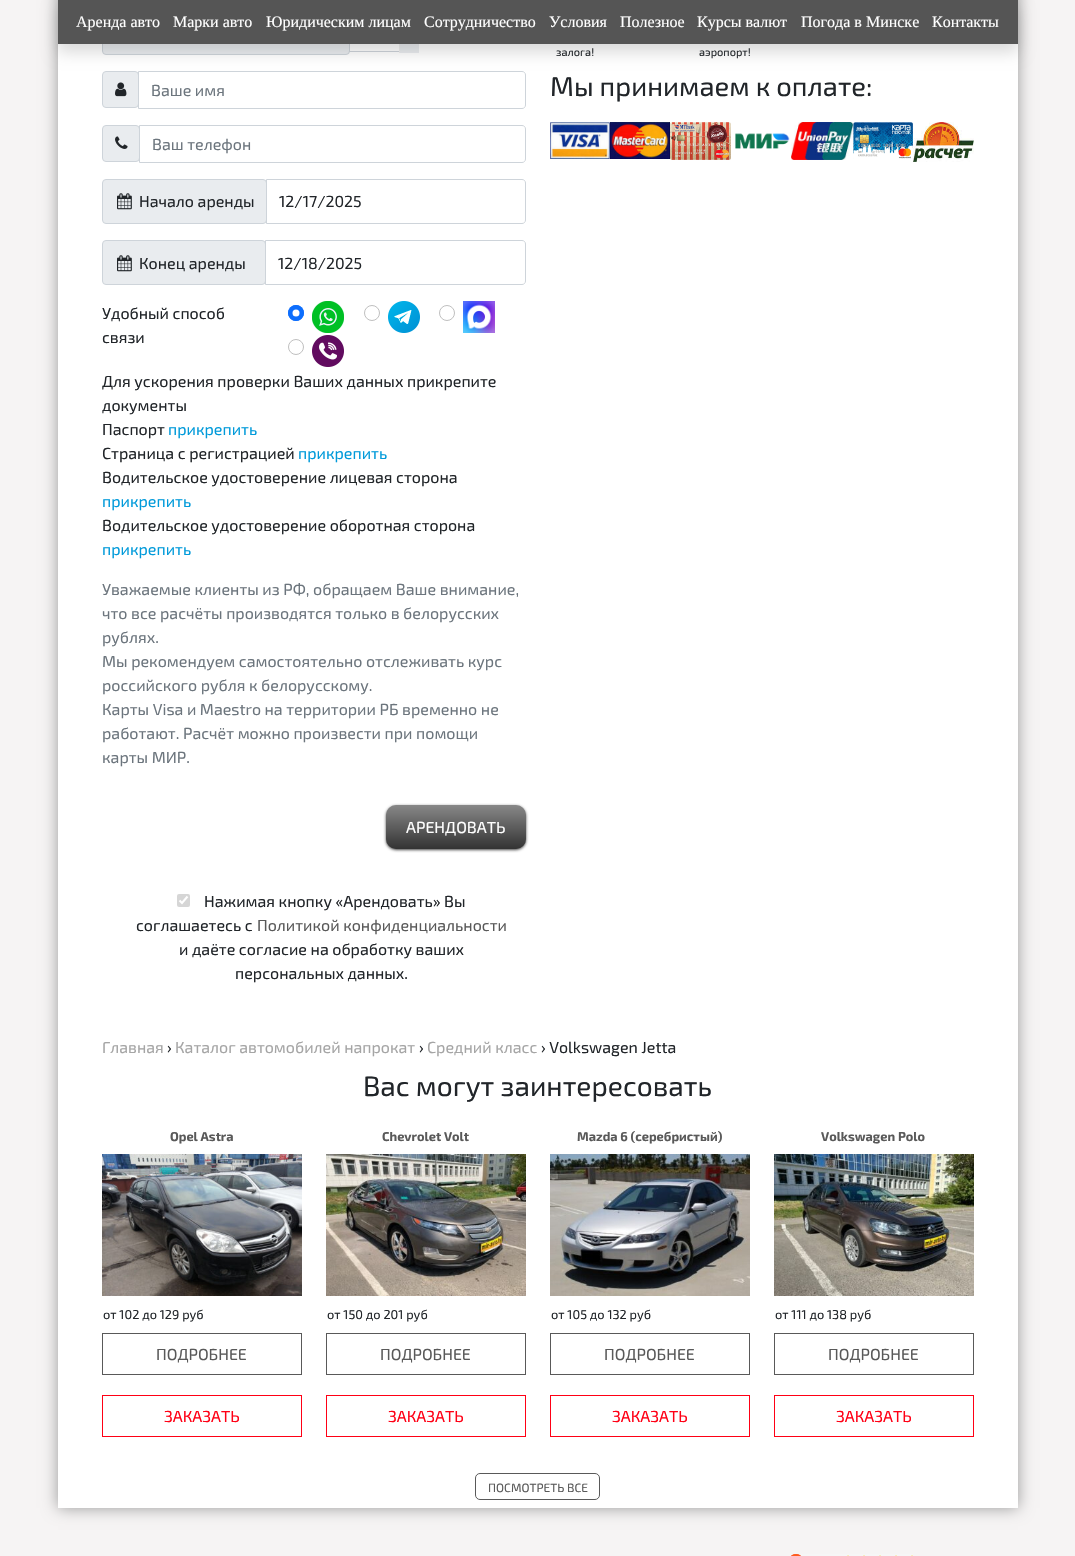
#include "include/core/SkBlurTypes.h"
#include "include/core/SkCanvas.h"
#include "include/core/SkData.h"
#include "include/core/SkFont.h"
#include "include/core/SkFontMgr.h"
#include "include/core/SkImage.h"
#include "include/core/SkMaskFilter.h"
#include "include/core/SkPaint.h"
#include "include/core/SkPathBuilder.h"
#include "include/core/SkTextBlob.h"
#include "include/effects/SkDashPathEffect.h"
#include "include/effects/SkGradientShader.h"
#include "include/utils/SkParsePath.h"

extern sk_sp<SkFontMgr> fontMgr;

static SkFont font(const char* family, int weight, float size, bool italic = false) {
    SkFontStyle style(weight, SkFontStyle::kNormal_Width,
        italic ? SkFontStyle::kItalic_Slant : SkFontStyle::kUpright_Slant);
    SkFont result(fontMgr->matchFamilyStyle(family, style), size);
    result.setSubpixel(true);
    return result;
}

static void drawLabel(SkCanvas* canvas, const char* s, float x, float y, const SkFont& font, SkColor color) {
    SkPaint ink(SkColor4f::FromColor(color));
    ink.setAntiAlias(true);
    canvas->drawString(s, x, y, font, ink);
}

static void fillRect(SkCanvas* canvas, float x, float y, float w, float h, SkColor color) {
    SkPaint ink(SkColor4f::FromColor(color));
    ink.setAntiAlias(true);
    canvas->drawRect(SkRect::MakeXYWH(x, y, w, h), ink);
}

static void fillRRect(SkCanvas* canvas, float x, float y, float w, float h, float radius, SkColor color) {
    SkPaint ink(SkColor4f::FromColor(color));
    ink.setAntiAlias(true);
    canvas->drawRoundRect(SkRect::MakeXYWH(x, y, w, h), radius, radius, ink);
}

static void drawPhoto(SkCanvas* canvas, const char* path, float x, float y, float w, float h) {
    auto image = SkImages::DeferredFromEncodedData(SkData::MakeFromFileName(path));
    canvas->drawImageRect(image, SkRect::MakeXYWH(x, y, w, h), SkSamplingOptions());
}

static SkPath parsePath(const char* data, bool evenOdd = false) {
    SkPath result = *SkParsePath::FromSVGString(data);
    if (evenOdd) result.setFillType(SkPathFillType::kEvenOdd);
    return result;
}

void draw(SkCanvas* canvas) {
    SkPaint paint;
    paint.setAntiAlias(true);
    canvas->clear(0xFFF6F4F4);
    paint.setColor(0xFF999999);
    paint.setMaskFilter(SkMaskFilter::MakeBlur(kNormal_SkBlurStyle, 7.5f));
    canvas->drawRect(SkRect::MakeXYWH(58, -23, 960, 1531), paint);
    paint.setMaskFilter(nullptr);
    fillRect(canvas, 58, 44, 960, 1464, 0xFFFFFFFF);
    paint.setColor(0xFFE9ECEF);
    canvas->drawRoundRect(SkRect::MakeXYWH(102.5f, 10.5f, 247, 44), 3.5f, 3.5f, paint);
    paint.setStroke(true);
    paint.setStrokeWidth(1);
    paint.setColor(0xFFCED4DA);
    canvas->drawRoundRect(SkRect::MakeXYWH(102.5f, 10.5f, 247, 44), 3.5f, 3.5f, paint);
    canvas->drawRect(SkRect::MakeXYWH(349.5f, 10.5f, 69, 41), paint);
    fillRect(canvas, 400, 44, 19, 9, 0xFFE9ECEF);
    fillRect(canvas, 399, 44, 1, 9, 0xFFEEEEEE);
    paint.setStroke(false);
    paint.setColor(0xFFE9ECEF);
    canvas->drawRoundRect(SkRect::MakeXYWH(102.5f, 71.5f, 36, 36), 3.5f, 3.5f, paint);
    paint.setStroke(true);
    paint.setColor(0xFFCED4DA);
    canvas->drawRoundRect(SkRect::MakeXYWH(102.5f, 71.5f, 36, 36), 3.5f, 3.5f, paint);
    canvas->drawPath(parsePath("M138.5 71.5H522C524 71.5 525.5 73 525.5 75V105C525.5 107 524 108.5 522 108.5H138.5Z"), paint);
    paint.setStroke(false);
    paint.setColor(0x26000000);
    paint.setMaskFilter(SkMaskFilter::MakeBlur(kNormal_SkBlurStyle, 8));
    canvas->drawRect(SkRect::MakeXYWH(58, 8, 960, 44), paint);
    paint.setMaskFilter(nullptr);
    fillRect(canvas, 58, 0, 960, 44, 0xFF555555);
    SkFont font1 = font("Liberation Serif", 400, 16);
    drawLabel(canvas, "Аренда авто", 76, 27, font1, 0xFFFFFFFF);
    drawLabel(canvas, "Марки авто", 173, 27, font1, 0xFFFFFFFF);
    drawLabel(canvas, "Юридическим лицам", 266, 27, font1, 0xFFFFFFFF);
    drawLabel(canvas, "Сотрудничество", 424, 27, font1, 0xFFFFFFFF);
    drawLabel(canvas, "Условия", 549, 27, font1, 0xFFFFFFFF);
    drawLabel(canvas, "Полезное", 620, 27, font1, 0xFFFFFFFF);
    drawLabel(canvas, "Курсы валют", 697, 27, font1, 0xFFFFFFFF);
    drawLabel(canvas, "Погода в Минске", 801, 27, font1, 0xFFFFFFFF);
    drawLabel(canvas, "Контакты", 932, 27, font1, 0xFFFFFFFF);
    SkFont font2 = font("Exo 2", 400, 11);
    drawLabel(canvas, "залога!", 556, 56, font2, 0xFF212529);
    drawLabel(canvas, "аэропорт!", 699, 56, font2, 0xFF212529);
    SkFont font3 = font("Exo 2", 400, 27.25f);
    drawLabel(canvas, "Мы принимаем к оплате:", 550, 96, font3, 0xFF212529);
    drawPhoto(canvas, "assets/img1.png", 550, 122, 60, 37);
    drawPhoto(canvas, "assets/img2.png", 610, 122, 60, 37);
    drawPhoto(canvas, "assets/img3.png", 670, 122, 61, 38);
    drawPhoto(canvas, "assets/img4.png", 735, 133, 55, 16);
    drawPhoto(canvas, "assets/img5.png", 791, 122, 62, 38);
    drawPhoto(canvas, "assets/img6.png", 853, 122, 60, 37);
    drawPhoto(canvas, "assets/img7.png", 913, 122, 61, 40);
    drawPhoto(canvas, "assets/img8.png", 115, 82, 12, 15);
    SkFont font4 = font("Exo 2", 400, 16);
    drawLabel(canvas, "Ваше имя", 151, 96, font4, 0xFF6C757D);
    paint.setColor(0xFFE9ECEF);
    canvas->drawRoundRect(SkRect::MakeXYWH(102.5f, 125.5f, 37, 36), 3.5f, 3.5f, paint);
    paint.setStroke(true);
    paint.setColor(0xFFCED4DA);
    canvas->drawRoundRect(SkRect::MakeXYWH(102.5f, 125.5f, 37, 36), 3.5f, 3.5f, paint);
    drawPhoto(canvas, "assets/img9.png", 115, 136, 13, 13);
    canvas->drawPath(parsePath("M139.5 125.5H522C524 125.5 525.5 127 525.5 129V159C525.5 161 524 162.5 522 162.5H139.5Z"), paint);
    drawLabel(canvas, "Ваш телефон", 152, 150, font4, 0xFF6C757D);
    paint.setStroke(false);
    paint.setColor(0xFFE9ECEF);
    canvas->drawRoundRect(SkRect::MakeXYWH(102.5f, 179.5f, 164, 44), 3.5f, 3.5f, paint);
    paint.setStroke(true);
    paint.setColor(0xFFCED4DA);
    canvas->drawRoundRect(SkRect::MakeXYWH(102.5f, 179.5f, 164, 44), 3.5f, 3.5f, paint);
    drawPhoto(canvas, "assets/img10.png", 117, 193, 15, 17);
    drawLabel(canvas, "Начало аренды", 139, 207, font4, 0xFF212529);
    canvas->drawPath(parsePath("M266.5 179.5H522C524 179.5 525.5 181 525.5 183V220C525.5 222 524 223.5 522 223.5H266.5Z"), paint);
    drawLabel(canvas, "12/17/2025", 279, 207, font4, 0xFF212529);
    paint.setStroke(false);
    paint.setColor(0xFFE9ECEF);
    canvas->drawRoundRect(SkRect::MakeXYWH(102.5f, 240.5f, 163, 44), 3.5f, 3.5f, paint);
    paint.setStroke(true);
    paint.setColor(0xFFCED4DA);
    canvas->drawRoundRect(SkRect::MakeXYWH(102.5f, 240.5f, 163, 44), 3.5f, 3.5f, paint);
    drawPhoto(canvas, "assets/img10.png", 117, 255, 15, 17);
    drawLabel(canvas, "Конец аренды", 139, 269, font4, 0xFF212529);
    canvas->drawPath(parsePath("M265.5 240.5H522C524 240.5 525.5 242 525.5 244V281C525.5 283 524 284.5 522 284.5H265.5Z"), paint);
    drawLabel(canvas, "12/18/2025", 278, 269, font4, 0xFF212529);
    drawLabel(canvas, "Удобный способ", 102, 319, font4, 0xFF212529);
    drawLabel(canvas, "связи", 102, 343, font4, 0xFF212529);
    paint.setStroke(false);
    paint.setColor(0xFF0D6EFD);
    canvas->drawCircle(296, 313, 8, paint);
    paint.setColor(0xFFFFFFFF);
    canvas->drawCircle(296, 313, 3.5f, paint);
    paint.setStroke(true);
    paint.setColor(0xFF0D6EFD);
    canvas->drawCircle(296, 313, 7.5f, paint);
    drawPhoto(canvas, "assets/img11.png", 312, 301, 32, 32);
    paint.setColor(0xFFBFBFBF);
    canvas->drawCircle(372, 313, 7.5f, paint);
    drawPhoto(canvas, "assets/img12.png", 388, 301, 32, 32);
    canvas->drawCircle(447, 313, 7.5f, paint);
    drawPhoto(canvas, "assets/img13.png", 463, 301, 32, 32);
    canvas->drawCircle(296, 347, 7.5f, paint);
    drawPhoto(canvas, "assets/img14.png", 312, 335, 32, 32);
    drawLabel(canvas, "Для ускорения проверки Ваших данных прикрепите", 102, 387, font4, 0xFF212529);
    drawLabel(canvas, "документы", 102, 411, font4, 0xFF212529);
    drawLabel(canvas, "Паспорт", 102, 435, font4, 0xFF212529);
    drawLabel(canvas, "прикрепить", 168, 435, font4, 0xFF009ADA);
    drawLabel(canvas, "Страница с регистрацией", 102, 459, font4, 0xFF212529);
    drawLabel(canvas, "прикрепить", 298, 459, font4, 0xFF009ADA);
    drawLabel(canvas, "Водительское удостоверение лицевая сторона", 102, 483, font4, 0xFF212529);
    drawLabel(canvas, "прикрепить", 102, 507, font4, 0xFF009ADA);
    drawLabel(canvas, "Водительское удостоверение оборотная сторона", 102, 531, font4, 0xFF212529);
    drawLabel(canvas, "прикрепить", 102, 555, font4, 0xFF009ADA);
    drawLabel(canvas, "Уважаемые клиенты из РФ, обращаем Ваше внимание,", 102, 595, font4, 0xFF6C757D);
    drawLabel(canvas, "что все расчёты производятся только в белорусских", 102, 619, font4, 0xFF6C757D);
    drawLabel(canvas, "рублях.", 102, 643, font4, 0xFF6C757D);
    drawLabel(canvas, "Мы рекомендуем самостоятельно отслеживать курс", 102, 667, font4, 0xFF6C757D);
    drawLabel(canvas, "российского рубля к белорусскому.", 102, 691, font4, 0xFF6C757D);
    drawLabel(canvas, "Карты Visa и Maestro на территории РБ временно не", 102, 715, font4, 0xFF6C757D);
    drawLabel(canvas, "работают. Расчёт можно произвести при помощи", 102, 739, font4, 0xFF6C757D);
    drawLabel(canvas, "карты МИР.", 102, 763, font4, 0xFF6C757D);
    paint.setStroke(false);
    paint.setColor(0xFF444444);
    paint.setMaskFilter(SkMaskFilter::MakeBlur(kNormal_SkBlurStyle, 1.5f));
    canvas->drawRoundRect(SkRect::MakeXYWH(386, 806, 140, 44), 10, 10, paint);
    paint.setMaskFilter(nullptr);
    {
        const SkColor colors[] = {0xFF888888, 0xFF333333};
        const float stops[] = {0, 1};
        const SkPoint ends[] = {{456, 805}, {456, 849}};
        paint.setShader(SkGradientShader::MakeLinear(ends, colors, stops, 2, SkTileMode::kClamp));
        paint.setAlpha(255);
    }
    canvas->drawRoundRect(SkRect::MakeXYWH(386, 805, 140, 44), 10, 10, paint);
    drawLabel(canvas, "АРЕНДОВАТЬ", 406, 833, font4, 0xFFFFFFFF);
    fillRRect(canvas, 177, 894, 13, 13, 2, 0xFFD6D6D6);
    paint.setStroke(true);
    paint.setStrokeWidth(2.1f);
    paint.setShader(nullptr);
    paint.setColor(0xFFFFFFFF);
    canvas->drawPath(parsePath("M179.5 900.5L182 903L187.5 896.5"), paint);
    drawLabel(canvas, "Нажимая кнопку «Арендовать» Вы", 204, 907, font4, 0xFF212529);
    drawLabel(canvas, "соглашаетесь с", 136, 931, font4, 0xFF212529);
    drawLabel(canvas, "Политикой конфиденциальности", 257, 931, font4, 0xFF595959);
    drawLabel(canvas, "и даёте согласие на обработку ваших", 179, 955, font4, 0xFF212529);
    drawLabel(canvas, "персональных данных.", 235, 979, font4, 0xFF212529);
    drawLabel(canvas, "Главная", 102, 1053, font4, 0xFFA5A5A5);
    drawLabel(canvas, "›", 167, 1053, font4, 0xFF212529);
    drawLabel(canvas, "Каталог автомобилей напрокат", 175, 1053, font4, 0xFFA5A5A5);
    drawLabel(canvas, "›", 419, 1053, font4, 0xFF212529);
    drawLabel(canvas, "Средний класс", 427, 1053, font4, 0xFFA5A5A5);
    drawLabel(canvas, "› Volkswagen Jetta", 541, 1053, font4, 0xFF212529);
    SkFont font5 = font("Exo 2", 400, 28);
    drawLabel(canvas, "Вас могут заинтересовать", 363, 1096, font5, 0xFF212529);
    SkFont font6 = font("Exo 2", 700, 12.75f);
    drawLabel(canvas, "Opel Astra", 170, 1141, font6, 0xFF595959);
    drawPhoto(canvas, "assets/img15.png", 102, 1154, 200, 142);
    SkFont font7 = font("Exo 2", 400, 12.75f);
    drawLabel(canvas, "от 102 до 129 руб", 103, 1319, font7, 0xFF212529);
    paint.setStrokeWidth(1);
    paint.setColor(0xFF595959);
    canvas->drawRect(SkRect::MakeXYWH(102.5f, 1333.5f, 199, 41), paint);
    drawLabel(canvas, "ПОДРОБНЕЕ", 156, 1360, font4, 0xFF595959);
    paint.setColor(0xFFFF0015);
    canvas->drawRect(SkRect::MakeXYWH(102.5f, 1395.5f, 199, 41), paint);
    drawLabel(canvas, "ЗАКАЗАТЬ", 164, 1422, font4, 0xFFFF0015);
    drawLabel(canvas, "Chevrolet Volt", 382, 1141, font6, 0xFF595959);
    drawPhoto(canvas, "assets/img16.png", 326, 1154, 200, 142);
    drawLabel(canvas, "от 150 до 201 руб", 327, 1319, font7, 0xFF212529);
    paint.setColor(0xFF595959);
    canvas->drawRect(SkRect::MakeXYWH(326.5f, 1333.5f, 199, 41), paint);
    drawLabel(canvas, "ПОДРОБНЕЕ", 380, 1360, font4, 0xFF595959);
    paint.setColor(0xFFFF0015);
    canvas->drawRect(SkRect::MakeXYWH(326.5f, 1395.5f, 199, 41), paint);
    drawLabel(canvas, "ЗАКАЗАТЬ", 388, 1422, font4, 0xFFFF0015);
    drawLabel(canvas, "Mazda 6 (серебристый)", 577, 1141, font6, 0xFF595959);
    drawPhoto(canvas, "assets/img17.png", 550, 1154, 200, 142);
    drawLabel(canvas, "от 105 до 132 руб", 551, 1319, font7, 0xFF212529);
    paint.setColor(0xFF595959);
    canvas->drawRect(SkRect::MakeXYWH(550.5f, 1333.5f, 199, 41), paint);
    drawLabel(canvas, "ПОДРОБНЕЕ", 604, 1360, font4, 0xFF595959);
    paint.setColor(0xFFFF0015);
    canvas->drawRect(SkRect::MakeXYWH(550.5f, 1395.5f, 199, 41), paint);
    drawLabel(canvas, "ЗАКАЗАТЬ", 612, 1422, font4, 0xFFFF0015);
    drawLabel(canvas, "Volkswagen Polo", 821, 1141, font6, 0xFF595959);
    drawPhoto(canvas, "assets/img18.png", 774, 1154, 200, 142);
    drawLabel(canvas, "от 111 до 138 руб", 775, 1319, font7, 0xFF212529);
    paint.setColor(0xFF595959);
    canvas->drawRect(SkRect::MakeXYWH(774.5f, 1333.5f, 199, 41), paint);
    drawLabel(canvas, "ПОДРОБНЕЕ", 828, 1360, font4, 0xFF595959);
    paint.setColor(0xFFFF0015);
    canvas->drawRect(SkRect::MakeXYWH(774.5f, 1395.5f, 199, 41), paint);
    drawLabel(canvas, "ЗАКАЗАТЬ", 836, 1422, font4, 0xFFFF0015);
    paint.setColor(0xFF595959);
    canvas->drawRoundRect(SkRect::MakeXYWH(475.5f, 1473.5f, 124, 26), 4.5f, 4.5f, paint);
    SkFont font8 = font("Exo 2", 400, 12);
    drawLabel(canvas, "ПОСМОТРЕТЬ ВСЕ", 488, 1492, font8, 0xFF595959);
    drawPhoto(canvas, "assets/img19.png", 791, 1554, 122, 2);
}
